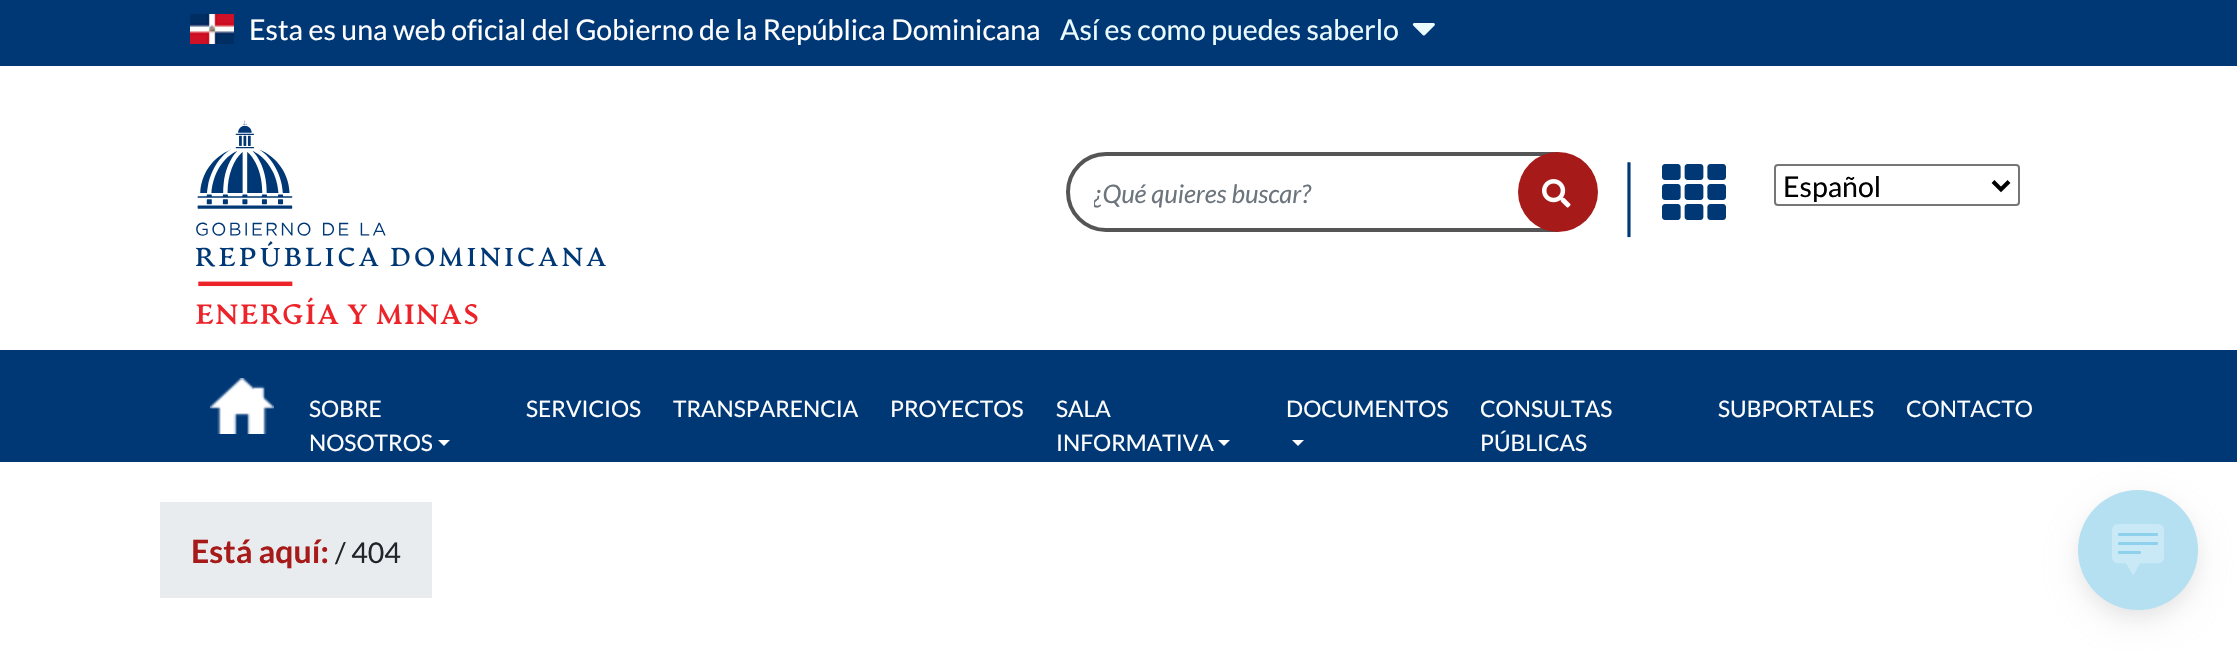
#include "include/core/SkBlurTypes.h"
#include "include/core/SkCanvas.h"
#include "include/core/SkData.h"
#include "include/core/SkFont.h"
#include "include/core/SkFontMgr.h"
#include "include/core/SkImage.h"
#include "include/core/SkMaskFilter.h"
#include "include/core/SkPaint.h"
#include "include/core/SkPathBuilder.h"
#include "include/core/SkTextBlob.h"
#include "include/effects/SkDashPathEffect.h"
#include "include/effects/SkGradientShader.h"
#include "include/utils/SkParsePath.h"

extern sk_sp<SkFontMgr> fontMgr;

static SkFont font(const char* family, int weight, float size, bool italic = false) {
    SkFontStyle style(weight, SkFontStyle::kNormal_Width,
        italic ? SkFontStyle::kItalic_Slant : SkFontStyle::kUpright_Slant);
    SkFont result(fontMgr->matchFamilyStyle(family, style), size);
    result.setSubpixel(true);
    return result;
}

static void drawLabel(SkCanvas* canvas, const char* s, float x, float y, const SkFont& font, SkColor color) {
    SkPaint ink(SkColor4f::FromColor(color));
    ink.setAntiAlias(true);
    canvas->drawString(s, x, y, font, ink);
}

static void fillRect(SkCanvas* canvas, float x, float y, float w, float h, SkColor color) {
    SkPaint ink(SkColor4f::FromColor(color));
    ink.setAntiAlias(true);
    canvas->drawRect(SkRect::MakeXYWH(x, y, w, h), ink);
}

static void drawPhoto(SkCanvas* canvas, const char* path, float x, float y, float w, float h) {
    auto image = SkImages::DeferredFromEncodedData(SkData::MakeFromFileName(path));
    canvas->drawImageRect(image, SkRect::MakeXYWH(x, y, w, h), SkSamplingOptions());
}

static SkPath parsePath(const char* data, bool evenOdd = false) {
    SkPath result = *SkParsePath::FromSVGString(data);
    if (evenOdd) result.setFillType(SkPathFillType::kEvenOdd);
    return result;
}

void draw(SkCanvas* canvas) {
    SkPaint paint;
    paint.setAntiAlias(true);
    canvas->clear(0xFFFFFFFF);
    fillRect(canvas, 0, 0, 2237, 66, 0xFF003876);
    drawPhoto(canvas, "assets/img1.png", 190, 14, 44, 30);
    SkFont font1 = font("Lato", 400, 28.5f);
    drawLabel(canvas, "Esta es una web oficial del Gobierno de la República Dominicana", 249, 40, font1, 0xFFFFFFFF);
    drawLabel(canvas, "Así es como puedes saberlo", 1060, 40, font1, 0xFFEBFCFF);
    drawPhoto(canvas, "assets/img2.png", 1412, 23, 23, 13);
    drawPhoto(canvas, "assets/img3.png", 196, 120, 410, 205);
    paint.setStroke(true);
    paint.setStrokeWidth(4);
    paint.setColor(0xFF555555);
    canvas->drawPath(parsePath("M1106 154H1556V230H1106C1085 230 1068 213 1068 192C1068 171 1085 154 1106 154Z"), paint);
    canvas->save();
    canvas->clipRect(SkRect::MakeXYWH(1094, 176, 428, 32));
    SkFont font2 = font("Lato", 400, 25.6f, true);
    drawLabel(canvas, "¿Qué quieres buscar?", 1093, 203, font2, 0xFF6C757D);
    canvas->restore();
    paint.setStroke(false);
    paint.setColor(0xFFA61B19);
    canvas->drawCircle(1558, 192, 40, paint);
    drawPhoto(canvas, "assets/img4.png", 1542, 179, 29, 29);
    SkFont font3 = font("Lato", 300, 80);
    drawLabel(canvas, "|", 1617, 223, font3, 0xFF003876);
    drawPhoto(canvas, "assets/img5.png", 1662, 164, 64, 56);
    paint.setStroke(true);
    paint.setStrokeWidth(2);
    paint.setColor(0xFF767676);
    canvas->drawRoundRect(SkRect::MakeXYWH(1775, 165, 244, 40), 3, 3, paint);
    paint.setStrokeWidth(4);
    paint.setColor(0xFF000000);
    canvas->drawPath(parsePath("M1993 181.5L2001 189.5L2009 181.5"), paint);
    drawLabel(canvas, "Español", 1783, 197, font1, 0xFF000000);
    fillRect(canvas, 0, 350, 2237, 112, 0xFF003876);
    drawPhoto(canvas, "assets/img6.png", 210, 378, 64, 56);
    SkFont font4 = font("Lato", 400, 22.75f);
    drawLabel(canvas, "SOBRE", 309, 417, font4, 0xFFFFFFFF);
    drawLabel(canvas, "NOSOTROS", 309, 451, font4, 0xFFFFFFFF);
    paint.setStroke(false);
    paint.setColor(0xFFFFFFFF);
    canvas->drawPath(parsePath("M438 440H450L444 446Z"), paint);
    drawLabel(canvas, "SERVICIOS", 526, 417, font4, 0xFFFFFFFF);
    drawLabel(canvas, "TRANSPARENCIA", 673, 417, font4, 0xFFFFFFFF);
    drawLabel(canvas, "PROYECTOS", 890, 417, font4, 0xFFFFFFFF);
    drawLabel(canvas, "SALA", 1056, 417, font4, 0xFFFFFFFF);
    drawLabel(canvas, "INFORMATIVA", 1056, 451, font4, 0xFFFFFFFF);
    canvas->drawPath(parsePath("M1218 440H1230L1224 446Z"), paint);
    drawLabel(canvas, "DOCUMENTOS", 1286, 417, font4, 0xFFFFFFFF);
    canvas->drawPath(parsePath("M1292 440H1304L1298 446Z"), paint);
    drawLabel(canvas, "CONSULTAS", 1480, 417, font4, 0xFFFFFFFF);
    drawLabel(canvas, "PÚBLICAS", 1480, 451, font4, 0xFFFFFFFF);
    drawLabel(canvas, "SUBPORTALES", 1718, 417, font4, 0xFFFFFFFF);
    drawLabel(canvas, "CONTACTO", 1906, 417, font4, 0xFFFFFFFF);
    fillRect(canvas, 160, 502, 272, 96, 0xFFE9ECEF);
    SkFont font5 = font("Lato", 700, 32);
    drawLabel(canvas, "Está aquí:", 191, 563, font5, 0xFFA61B19);
    drawLabel(canvas, "/ 404", 335, 563, font1, 0xFF212529);
    paint.setColor(0x30B3B3B3);
    paint.setMaskFilter(SkMaskFilter::MakeBlur(kNormal_SkBlurStyle, 20));
    canvas->drawRoundRect(SkRect::MakeXYWH(2078, 502, 120, 120), 60, 60, paint);
    paint.setMaskFilter(nullptr);
    paint.setColor(0x33B3B3B3);
    paint.setMaskFilter(SkMaskFilter::MakeBlur(kNormal_SkBlurStyle, 8));
    canvas->drawRoundRect(SkRect::MakeXYWH(2078, 498, 120, 120), 60, 60, paint);
    paint.setMaskFilter(nullptr);
    paint.setColor(0xFFB4E0F2);
    canvas->drawCircle(2138, 550, 60, paint);
    drawPhoto(canvas, "assets/img7.png", 2112, 524, 52, 51);
}
